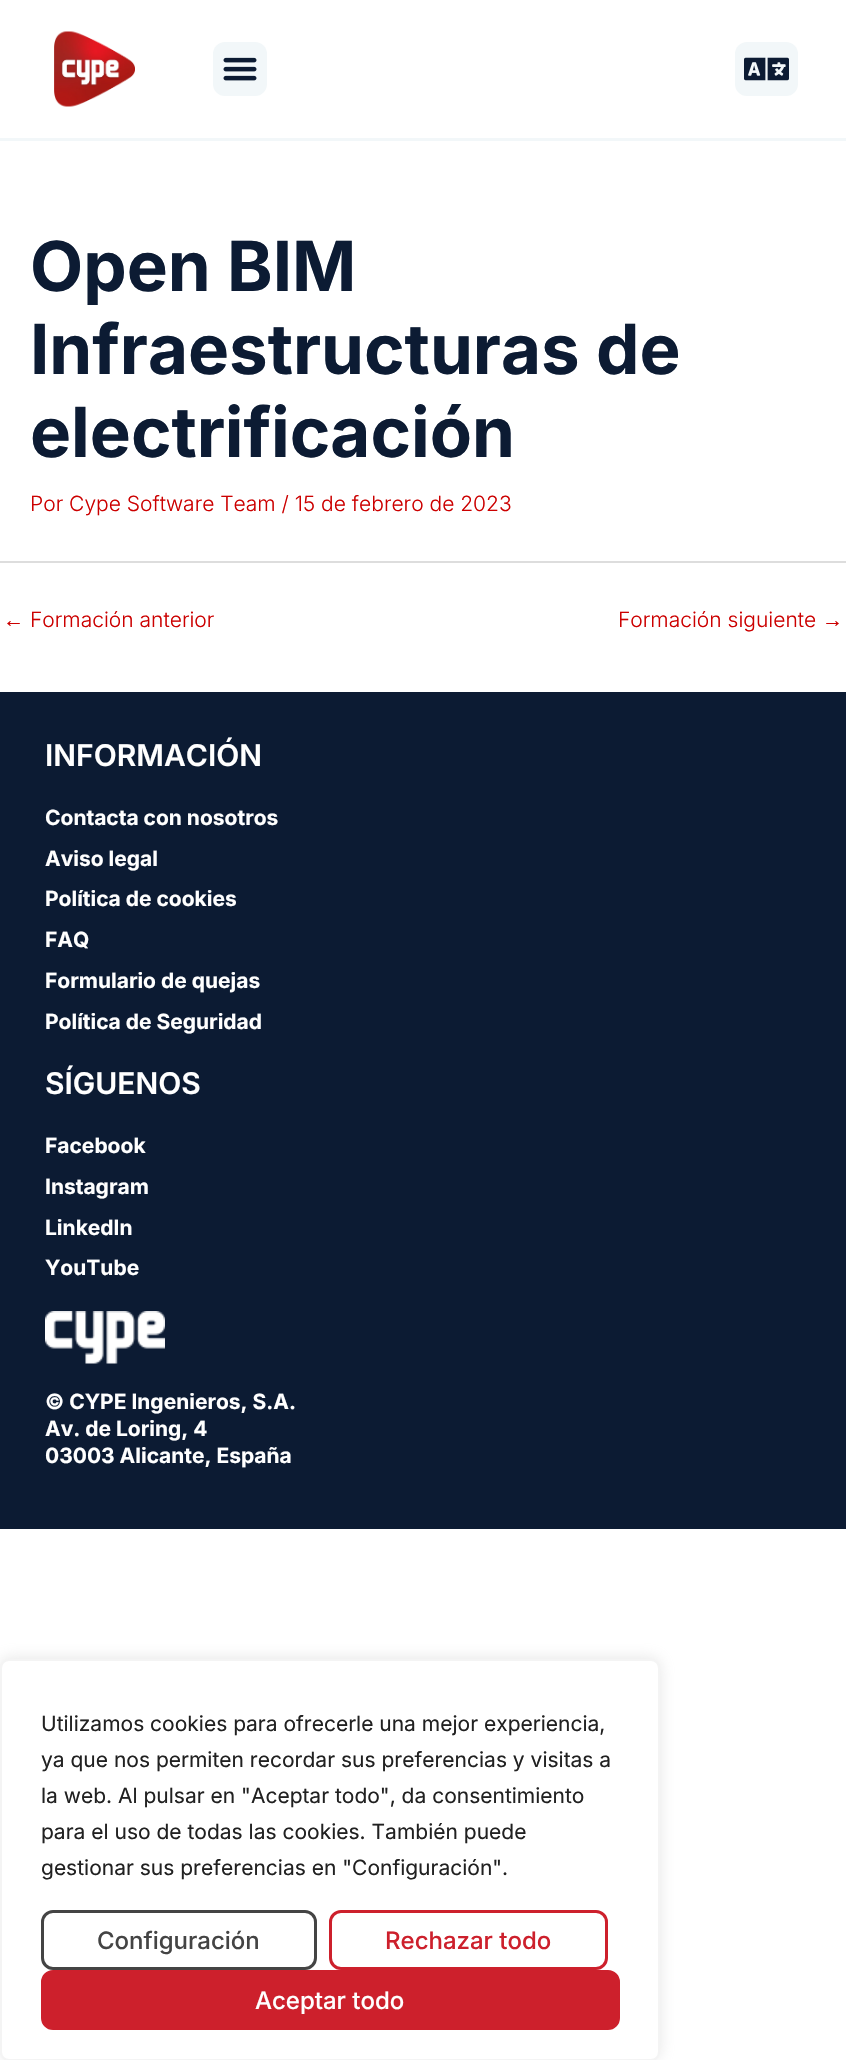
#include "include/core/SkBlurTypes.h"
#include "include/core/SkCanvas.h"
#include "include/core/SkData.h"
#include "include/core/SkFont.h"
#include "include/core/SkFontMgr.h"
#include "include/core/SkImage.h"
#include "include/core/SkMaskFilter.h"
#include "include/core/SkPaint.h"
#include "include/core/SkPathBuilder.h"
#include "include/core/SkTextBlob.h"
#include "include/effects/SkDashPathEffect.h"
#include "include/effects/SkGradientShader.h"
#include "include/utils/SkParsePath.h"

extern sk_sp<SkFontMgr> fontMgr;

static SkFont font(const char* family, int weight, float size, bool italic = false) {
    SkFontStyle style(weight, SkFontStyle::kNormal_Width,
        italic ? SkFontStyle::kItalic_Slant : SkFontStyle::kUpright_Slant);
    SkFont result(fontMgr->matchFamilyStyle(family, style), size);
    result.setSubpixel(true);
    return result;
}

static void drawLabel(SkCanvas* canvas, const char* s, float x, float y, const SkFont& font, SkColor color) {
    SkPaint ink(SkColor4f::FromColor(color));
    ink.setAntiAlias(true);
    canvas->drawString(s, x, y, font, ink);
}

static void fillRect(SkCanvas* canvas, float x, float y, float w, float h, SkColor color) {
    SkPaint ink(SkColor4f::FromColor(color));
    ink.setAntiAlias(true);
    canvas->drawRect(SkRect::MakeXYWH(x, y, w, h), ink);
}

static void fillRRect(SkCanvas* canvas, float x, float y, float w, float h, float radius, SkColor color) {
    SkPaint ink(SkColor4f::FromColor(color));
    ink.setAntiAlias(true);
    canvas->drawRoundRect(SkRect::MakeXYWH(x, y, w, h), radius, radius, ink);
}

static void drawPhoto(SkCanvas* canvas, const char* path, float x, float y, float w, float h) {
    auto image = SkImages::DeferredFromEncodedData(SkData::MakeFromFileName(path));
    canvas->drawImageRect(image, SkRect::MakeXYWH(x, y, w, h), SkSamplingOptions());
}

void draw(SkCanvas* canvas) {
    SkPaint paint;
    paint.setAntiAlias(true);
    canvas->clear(0xFFFFFFFF);
    fillRect(canvas, 0, 138, 846, 3, 0xFFF2F7F9);
    drawPhoto(canvas, "assets/img1.png", 54, 31, 81, 76);
    fillRRect(canvas, 213, 42, 54, 54, 12, 0xFFF2F7F9);
    drawPhoto(canvas, "assets/img2.png", 223, 57, 34, 24);
    fillRRect(canvas, 735, 42, 63, 54, 12, 0xFFF2F7F9);
    drawPhoto(canvas, "assets/img3.png", 744, 57, 45, 24);
    SkFont font1 = font("Inter", 700, 69);
    drawLabel(canvas, "Open BIM", 30, 291, font1, 0xFF0C1B33);
    drawLabel(canvas, "Infraestructuras de", 30, 374, font1, 0xFF0C1B33);
    drawLabel(canvas, "electrificación", 30, 457, font1, 0xFF0C1B33);
    SkFont font2 = font("Inter", 300, 21);
    drawLabel(canvas, "Por Cype Software Team / 15 de febrero de 2023", 30, 511, font2, 0xFFCC0000);
    fillRect(canvas, 0, 561, 846, 2, 0xFFDDDDDD);
    SkFont font3 = font("Liberation Sans", 400, 21);
    drawLabel(canvas, "←", 3, 627, font3, 0xFFCC0000);
    drawLabel(canvas, "Formación anterior", 30, 627, font2, 0xFFCC0000);
    drawLabel(canvas, "Formación siguiente", 618, 627, font2, 0xFFCC0000);
    drawLabel(canvas, "→", 822, 627, font3, 0xFFCC0000);
    fillRect(canvas, 0, 692, 846, 837, 0xFF0C1B33);
    SkFont font4 = font("Inter", 600, 30);
    drawLabel(canvas, "INFORMACIÓN", 45, 766, font4, 0xFFFFFFFF);
    SkFont font5 = font("Inter", 700, 21);
    drawLabel(canvas, "Contacta con nosotros", 45, 825, font5, 0xFFFFFFFF);
    drawLabel(canvas, "Aviso legal", 45, 866, font5, 0xFFFFFFFF);
    drawLabel(canvas, "Política de cookies", 45, 906, font5, 0xFFFFFFFF);
    drawLabel(canvas, "FAQ", 45, 947, font5, 0xFFFFFFFF);
    drawLabel(canvas, "Formulario de quejas", 45, 988, font5, 0xFFFFFFFF);
    drawLabel(canvas, "Política de Seguridad", 45, 1029, font5, 0xFFFFFFFF);
    drawLabel(canvas, "SÍGUENOS", 45, 1094, font4, 0xFFFFFFFF);
    drawLabel(canvas, "Facebook", 45, 1153, font5, 0xFFFFFFFF);
    drawLabel(canvas, "Instagram", 45, 1194, font5, 0xFFFFFFFF);
    drawLabel(canvas, "LinkedIn", 45, 1235, font5, 0xFFFFFFFF);
    drawLabel(canvas, "YouTube", 45, 1275, font5, 0xFFFFFFFF);
    drawPhoto(canvas, "assets/img4.png", 45, 1311, 120, 53);
    drawLabel(canvas, "© CYPE Ingenieros, S.A.", 45, 1409, font5, 0xFFFFFFFF);
    drawLabel(canvas, "Av. de Loring, 4", 45, 1436, font5, 0xFFFFFFFF);
    drawLabel(canvas, "03003 Alicante, España", 45, 1463, font5, 0xFFFFFFFF);
    paint.setColor(0x4DACABAB);
    paint.setMaskFilter(SkMaskFilter::MakeBlur(kNormal_SkBlurStyle, 7.5f));
    canvas->drawRoundRect(SkRect::MakeXYWH(0, 1658, 660, 402), 9, 9, paint);
    paint.setMaskFilter(nullptr);
    paint.setColor(0xFFFFFFFF);
    canvas->drawRoundRect(SkRect::MakeXYWH(1, 1660, 658, 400), 8, 8, paint);
    paint.setStroke(true);
    paint.setStrokeWidth(2);
    paint.setColor(0xFFF4F4F4);
    canvas->drawRoundRect(SkRect::MakeXYWH(1, 1660, 658, 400), 8, 8, paint);
    SkFont font6 = font("Inter", 400, 21);
    drawLabel(canvas, "Utilizamos cookies para ofrecerle una mejor experiencia,", 41, 1731, font6, 0xFF212121);
    drawLabel(canvas, "ya que nos permiten recordar sus preferencias y visitas a", 41, 1767, font6, 0xFF212121);
    drawLabel(canvas, "la web. Al pulsar en \"Aceptar todo\", da consentimiento", 41, 1803, font6, 0xFF212121);
    drawLabel(canvas, "para el uso de todas las cookies. También puede", 41, 1839, font6, 0xFF212121);
    drawLabel(canvas, "gestionar sus preferencias en \"Configuración\".", 41, 1875, font6, 0xFF212121);
    paint.setStrokeWidth(3);
    paint.setColor(0xFF444444);
    canvas->drawRoundRect(SkRect::MakeXYWH(42.5f, 1911.5f, 273, 57), 10.5f, 10.5f, paint);
    SkFont font7 = font("Inter", 500, 24);
    drawLabel(canvas, "Configuración", 97, 1949, font7, 0xFF444444);
    paint.setColor(0xFFCD202C);
    canvas->drawRoundRect(SkRect::MakeXYWH(330.5f, 1911.5f, 276, 57), 10.5f, 10.5f, paint);
    drawLabel(canvas, "Rechazar todo", 385, 1949, font7, 0xFFCD202C);
    paint.setStroke(false);
    canvas->drawRoundRect(SkRect::MakeXYWH(42.5f, 1971.5f, 576, 57), 10.5f, 10.5f, paint);
    paint.setStroke(true);
    canvas->drawRoundRect(SkRect::MakeXYWH(42.5f, 1971.5f, 576, 57), 10.5f, 10.5f, paint);
    drawLabel(canvas, "Aceptar todo", 255, 2009, font7, 0xFFFFFFFF);
}
